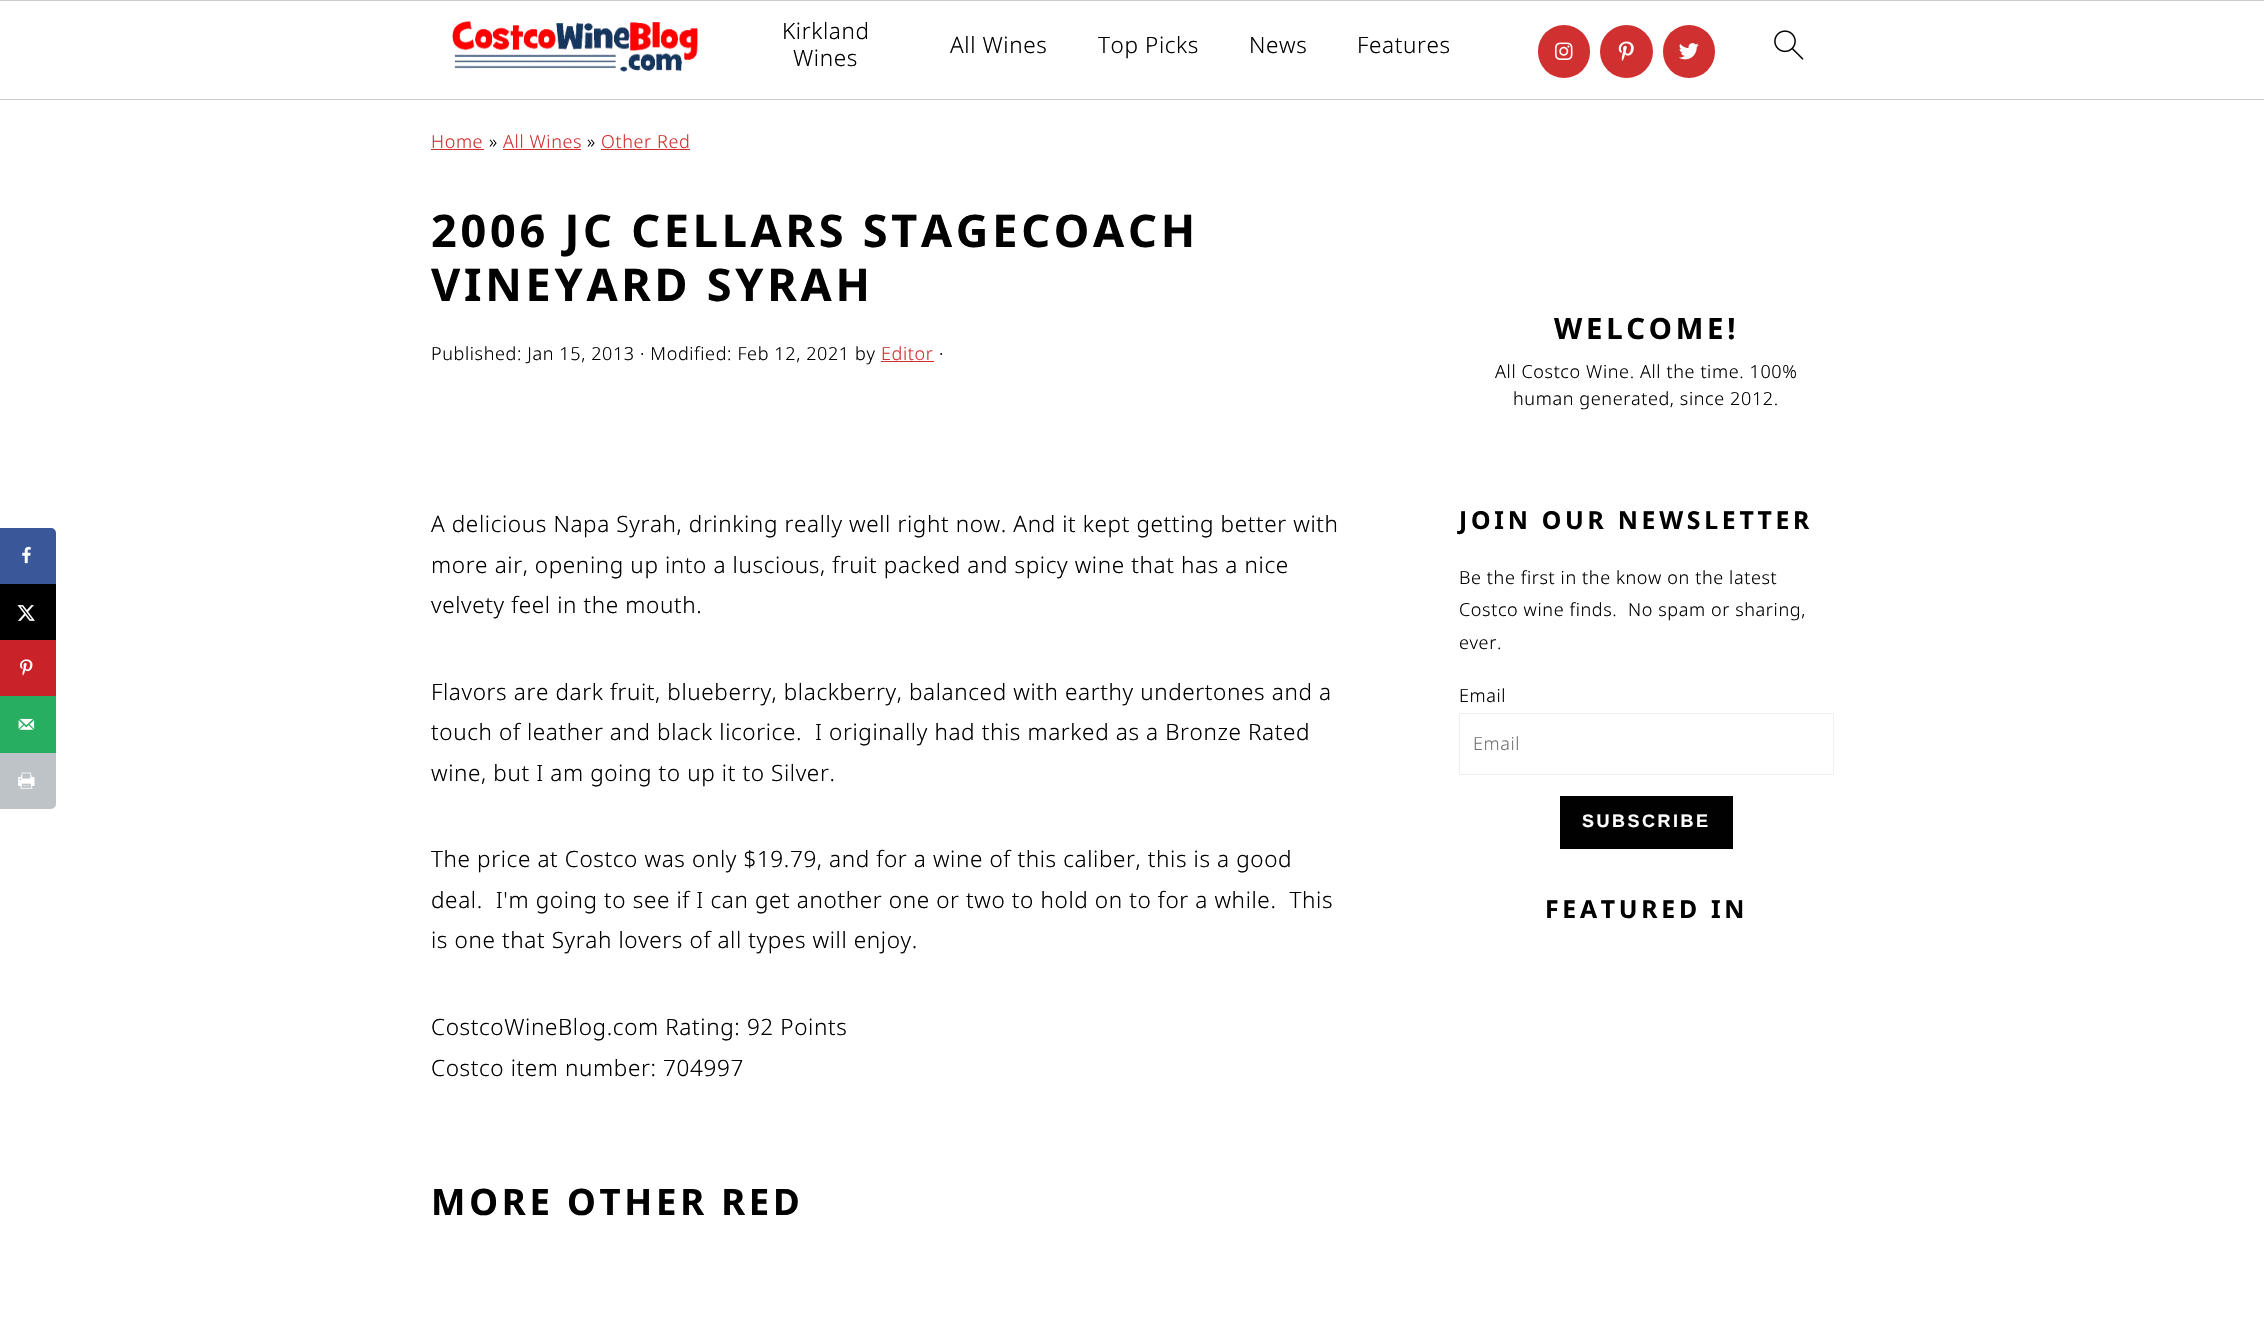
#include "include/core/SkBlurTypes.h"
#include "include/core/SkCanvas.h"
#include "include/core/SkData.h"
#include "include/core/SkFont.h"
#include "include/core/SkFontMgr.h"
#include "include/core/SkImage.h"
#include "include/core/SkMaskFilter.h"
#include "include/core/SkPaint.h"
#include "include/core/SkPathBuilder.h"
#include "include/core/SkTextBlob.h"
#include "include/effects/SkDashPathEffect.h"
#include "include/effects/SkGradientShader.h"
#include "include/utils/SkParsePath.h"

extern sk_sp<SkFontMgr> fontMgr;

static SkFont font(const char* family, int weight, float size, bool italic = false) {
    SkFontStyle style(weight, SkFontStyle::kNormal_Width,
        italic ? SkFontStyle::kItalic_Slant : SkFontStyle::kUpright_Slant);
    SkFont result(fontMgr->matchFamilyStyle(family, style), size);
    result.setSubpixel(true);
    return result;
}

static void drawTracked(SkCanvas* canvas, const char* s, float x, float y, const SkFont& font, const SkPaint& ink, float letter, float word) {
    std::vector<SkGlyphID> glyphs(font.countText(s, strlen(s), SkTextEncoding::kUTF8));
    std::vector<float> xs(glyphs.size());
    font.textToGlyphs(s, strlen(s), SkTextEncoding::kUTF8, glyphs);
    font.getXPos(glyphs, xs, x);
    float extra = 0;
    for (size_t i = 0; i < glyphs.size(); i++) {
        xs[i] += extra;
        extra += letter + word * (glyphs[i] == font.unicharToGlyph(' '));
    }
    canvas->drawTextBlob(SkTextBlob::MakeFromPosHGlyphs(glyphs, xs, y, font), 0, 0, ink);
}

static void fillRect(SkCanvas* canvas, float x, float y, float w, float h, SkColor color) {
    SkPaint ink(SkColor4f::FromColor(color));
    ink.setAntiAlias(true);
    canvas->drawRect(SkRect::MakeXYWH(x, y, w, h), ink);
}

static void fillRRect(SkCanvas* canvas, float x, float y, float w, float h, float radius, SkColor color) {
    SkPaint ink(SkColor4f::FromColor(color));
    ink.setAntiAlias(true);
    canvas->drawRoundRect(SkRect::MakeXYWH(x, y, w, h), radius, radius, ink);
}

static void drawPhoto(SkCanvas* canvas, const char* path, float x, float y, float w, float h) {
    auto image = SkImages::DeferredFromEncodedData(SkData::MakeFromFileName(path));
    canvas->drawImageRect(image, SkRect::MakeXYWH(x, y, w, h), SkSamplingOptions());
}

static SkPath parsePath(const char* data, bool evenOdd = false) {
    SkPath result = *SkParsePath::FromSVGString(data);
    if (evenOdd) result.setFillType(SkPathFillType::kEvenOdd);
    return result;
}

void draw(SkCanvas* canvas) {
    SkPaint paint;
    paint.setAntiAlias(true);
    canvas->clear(0xFFFFFFFF);
    paint.setColor(0xFF3A579A);
    canvas->drawPath(parsePath("M1.5 529.5H51C53 529.5 54.5 531 54.5 533V582.5H1.5Z"), paint);
    paint.setStroke(true);
    paint.setStrokeWidth(3);
    canvas->drawPath(parsePath("M1.5 529.5H51C53 529.5 54.5 531 54.5 533V582.5H1.5Z"), paint);
    drawPhoto(canvas, "assets/img1.png", 22, 546, 9, 18);
    fillRect(canvas, 0, 584, 56, 56, 0xFF000000);
    drawPhoto(canvas, "assets/img2.png", 17, 605, 18, 16);
    fillRect(canvas, 0, 640, 56, 56, 0xFFC92228);
    drawPhoto(canvas, "assets/img3.png", 20, 659, 13, 17);
    fillRect(canvas, 0, 696, 56, 57, 0xFF27AE60);
    drawPhoto(canvas, "assets/img4.png", 18, 718, 17, 12);
    paint.setStroke(false);
    paint.setColor(0xFFBDC3C7);
    canvas->drawPath(parsePath("M1.5 754.5H54.5V804C54.5 806 53 807.5 51 807.5H1.5Z"), paint);
    paint.setStroke(true);
    canvas->drawPath(parsePath("M1.5 754.5H54.5V804C54.5 806 53 807.5 51 807.5H1.5Z"), paint);
    drawPhoto(canvas, "assets/img5.png", 18, 772, 17, 17);
    fillRect(canvas, 0, 0, 2264, 1, 0xFFCCCCCC);
    fillRect(canvas, 0, 99, 2264, 1, 0xFFCCCCCC);
    drawPhoto(canvas, "assets/img6.png", 452, 21, 246, 51);
    SkFont font1 = font("Noto Sans", 300, 22.5f);
    paint.setStroke(false);
    paint.setColor(0xFF010101);
    drawTracked(canvas, "Kirkland", 782, 39, font1, paint, 0.62f, 0);
    drawTracked(canvas, "Wines", 793, 66, font1, paint, 0.62f, 0);
    drawTracked(canvas, "All Wines", 950, 53, font1, paint, 0.62f, 0);
    drawTracked(canvas, "Top Picks", 1098, 53, font1, paint, 0.62f, 0);
    drawTracked(canvas, "News", 1249, 53, font1, paint, 0.62f, 0);
    drawTracked(canvas, "Features", 1357, 53, font1, paint, 0.62f, 0);
    fillRRect(canvas, 1538, 25, 52, 53, 26, 0xFFD13030);
    drawPhoto(canvas, "assets/img7.png", 1555, 42, 18, 18);
    paint.setColor(0xFFD13030);
    canvas->drawCircle(1626.5f, 51.5f, 26.5f, paint);
    drawPhoto(canvas, "assets/img8.png", 1618, 41, 16, 20);
    fillRRect(canvas, 1663, 25, 52, 53, 26, 0xFFD13030);
    drawPhoto(canvas, "assets/img9.png", 1679, 43, 20, 17);
    drawPhoto(canvas, "assets/img10.png", 1774, 30, 30, 30);
    SkFont font2 = font("Noto Sans", 300, 18);
    drawTracked(canvas, "Home", 431, 148, font2, paint, 0.62f, 0);
    fillRect(canvas, 431, 149, 53, 1, 0xFFD13030);
    paint.setColor(0xFF010101);
    drawTracked(canvas, "»", 489, 148, font2, paint, 0.62f, 0);
    paint.setColor(0xFFD13030);
    drawTracked(canvas, "All Wines", 503, 148, font2, paint, 0.62f, 0);
    fillRect(canvas, 503, 149, 78, 1, 0xFFD13030);
    paint.setColor(0xFF010101);
    drawTracked(canvas, "»", 587, 148, font2, paint, 0.62f, 0);
    paint.setColor(0xFFD13030);
    drawTracked(canvas, "Other Red", 601, 148, font2, paint, 0.62f, 0);
    fillRect(canvas, 601, 149, 89, 1, 0xFFD13030);
    SkFont font3 = font("Noto Sans", 700, 45);
    paint.setColor(0xFF010101);
    drawTracked(canvas, "2006 JC CELLARS STAGECOACH", 431, 247, font3, paint, 3.75f, 0);
    drawTracked(canvas, "VINEYARD SYRAH", 431, 301, font3, paint, 3.75f, 0);
    drawTracked(canvas, "Published: Jan 15, 2013 · Modified: Feb 12, 2021 by", 431, 360, font2, paint, 0.62f, 0);
    paint.setColor(0xFFD13030);
    drawTracked(canvas, "Editor", 881, 360, font2, paint, 0.62f, 0);
    fillRect(canvas, 881, 361, 53, 1, 0xFFD13030);
    paint.setColor(0xFF010101);
    drawTracked(canvas, "·", 939, 360, font2, paint, 0.62f, 0);
    drawTracked(canvas, "A delicious Napa Syrah, drinking really well right now. And it kept getting better with", 431, 532, font1, paint, 0.62f, 0);
    drawTracked(canvas, "more air, opening up into a luscious, fruit packed and spicy wine that has a nice", 431, 573, font1, paint, 0.62f, 0);
    drawTracked(canvas, "velvety feel in the mouth.", 431, 613, font1, paint, 0.62f, 0);
    drawTracked(canvas, "Flavors are dark fruit, blueberry, blackberry, balanced with earthy undertones and a", 431, 700, font1, paint, 0.62f, 0);
    drawTracked(canvas, "touch of leather and black licorice.  I originally had this marked as a Bronze Rated", 431, 740, font1, paint, 0.62f, 0);
    drawTracked(canvas, "wine, but I am going to up it to Silver.", 431, 781, font1, paint, 0.62f, 0);
    drawTracked(canvas, "The price at Costco was only $19.79, and for a wine of this caliber, this is a good", 431, 867, font1, paint, 0.62f, 0);
    drawTracked(canvas, "deal.  I'm going to see if I can get another one or two to hold on to for a while.  This", 431, 908, font1, paint, 0.62f, 0);
    drawTracked(canvas, "is one that Syrah lovers of all types will enjoy.", 431, 948, font1, paint, 0.62f, 0);
    drawTracked(canvas, "CostcoWineBlog.com Rating: 92 Points", 431, 1035, font1, paint, 0.62f, 0);
    drawTracked(canvas, "Costco item number: 704997", 431, 1076, font1, paint, 0.62f, 0);
    SkFont font4 = font("Noto Sans", 700, 36.5f);
    drawTracked(canvas, "MORE OTHER RED", 431, 1215, font4, paint, 3.75f, 0);
    SkFont font5 = font("Noto Sans", 700, 29.25f);
    drawTracked(canvas, "WELCOME!", 1554, 339, font5, paint, 3.75f, 0);
    drawTracked(canvas, "All Costco Wine. All the time. 100%", 1495, 378, font2, paint, 0.62f, 0);
    drawTracked(canvas, "human generated, since 2012.", 1513, 405, font2, paint, 0.62f, 0);
    SkFont font6 = font("Noto Sans", 700, 24.75f);
    drawTracked(canvas, "JOIN OUR NEWSLETTER", 1459, 529, font6, paint, 3.75f, 0);
    drawTracked(canvas, "Be the first in the know on the latest", 1459, 584, font2, paint, 0.62f, 0);
    drawTracked(canvas, "Costco wine finds.  No spam or sharing,", 1459, 616, font2, paint, 0.62f, 0);
    drawTracked(canvas, "ever.", 1459, 649, font2, paint, 0.62f, 0);
    drawTracked(canvas, "Email", 1459, 702, font2, paint, 0.62f, 0);
    paint.setStroke(true);
    paint.setStrokeWidth(1);
    paint.setColor(0xFFEEEEEE);
    canvas->drawRect(SkRect::MakeXYWH(1459.5f, 713.5f, 374, 61), paint);
    paint.setStroke(false);
    paint.setColor(0xFF757575);
    drawTracked(canvas, "Email", 1473, 750, font2, paint, 0.62f, 0);
    fillRect(canvas, 1560, 796, 173, 53, 0xFF010101);
    SkFont font7 = font("Liberation Sans", 700, 18);
    paint.setColor(0xFFFFFFFF);
    drawTracked(canvas, "SUBSCRIBE", 1582, 827, font7, paint, 2.5f, 0);
    paint.setColor(0xFF010101);
    drawTracked(canvas, "FEATURED IN", 1545, 918, font6, paint, 3.75f, 0);
}
